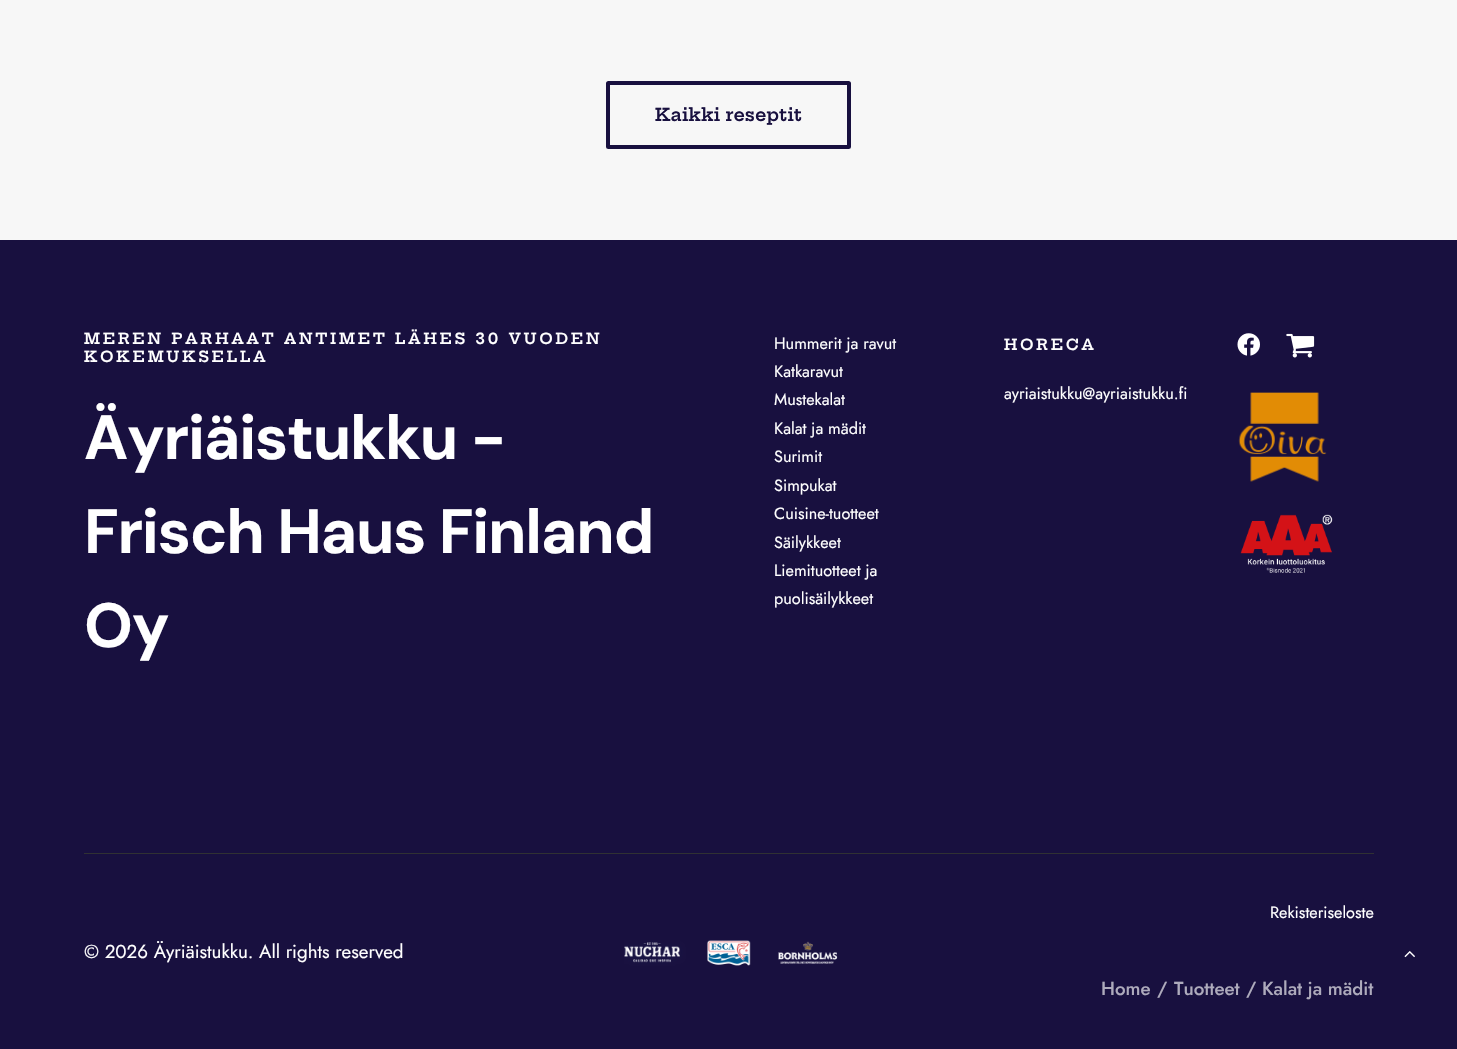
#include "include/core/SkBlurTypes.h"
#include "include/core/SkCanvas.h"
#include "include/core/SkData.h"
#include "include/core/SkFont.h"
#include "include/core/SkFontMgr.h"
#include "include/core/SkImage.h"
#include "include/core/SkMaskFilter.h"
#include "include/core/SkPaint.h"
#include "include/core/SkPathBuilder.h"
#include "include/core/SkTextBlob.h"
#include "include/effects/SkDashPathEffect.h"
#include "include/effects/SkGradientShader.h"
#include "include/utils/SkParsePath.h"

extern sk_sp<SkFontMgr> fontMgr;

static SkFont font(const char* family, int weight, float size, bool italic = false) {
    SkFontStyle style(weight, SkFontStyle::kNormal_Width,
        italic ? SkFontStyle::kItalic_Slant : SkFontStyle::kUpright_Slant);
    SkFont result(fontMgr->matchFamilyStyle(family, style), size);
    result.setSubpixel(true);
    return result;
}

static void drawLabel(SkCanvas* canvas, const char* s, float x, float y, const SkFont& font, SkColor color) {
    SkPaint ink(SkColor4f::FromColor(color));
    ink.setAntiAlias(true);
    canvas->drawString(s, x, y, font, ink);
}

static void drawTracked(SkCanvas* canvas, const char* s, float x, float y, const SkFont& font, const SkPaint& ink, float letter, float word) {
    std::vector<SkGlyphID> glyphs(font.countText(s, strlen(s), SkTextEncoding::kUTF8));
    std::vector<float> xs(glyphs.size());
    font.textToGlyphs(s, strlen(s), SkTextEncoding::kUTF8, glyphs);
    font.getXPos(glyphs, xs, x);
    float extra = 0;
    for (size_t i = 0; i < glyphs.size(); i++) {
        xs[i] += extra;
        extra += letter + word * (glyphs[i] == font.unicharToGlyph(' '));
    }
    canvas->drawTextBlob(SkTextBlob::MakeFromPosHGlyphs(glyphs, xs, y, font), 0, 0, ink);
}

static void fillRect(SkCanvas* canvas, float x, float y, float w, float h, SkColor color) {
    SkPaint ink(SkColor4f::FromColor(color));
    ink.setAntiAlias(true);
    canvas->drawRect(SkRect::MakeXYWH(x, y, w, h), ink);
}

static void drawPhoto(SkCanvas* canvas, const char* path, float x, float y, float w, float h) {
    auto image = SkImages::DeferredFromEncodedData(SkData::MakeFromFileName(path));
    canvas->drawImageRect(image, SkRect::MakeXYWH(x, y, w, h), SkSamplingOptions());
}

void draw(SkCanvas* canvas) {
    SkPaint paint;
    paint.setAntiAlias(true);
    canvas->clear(0xFFF7F7F7);
    paint.setStroke(true);
    paint.setStrokeWidth(4);
    paint.setColor(0xFF18103F);
    canvas->drawRoundRect(SkRect::MakeXYWH(608, 83, 241, 64), 0.5f, 0.5f, paint);
    SkFont font1 = font("Hepta Slab", 600, 17.5f);
    drawLabel(canvas, "Kaikki reseptit", 655, 121, font1, 0xFF18103F);
    fillRect(canvas, 0, 240, 1457, 809, 0xFF18103F);
    SkFont font2 = font("Hepta Slab", 600, 15);
    paint.setStroke(false);
    paint.setColor(0xFFFFFFFF);
    drawTracked(canvas, "MEREN PARHAAT ANTIMET LÄHES 30 VUODEN", 84, 344, font2, paint, 3, 0);
    drawTracked(canvas, "KOKEMUKSELLA", 84, 362, font2, paint, 3, 0);
    SkFont font3 = font("DM Sans", 700, 62.5f);
    drawTracked(canvas, "Äyriäistukku -", 84, 459, font3, paint, -1.25f, 0);
    drawTracked(canvas, "Frisch Haus Finland", 84, 553, font3, paint, -1.25f, 0);
    drawTracked(canvas, "Oy", 84, 647, font3, paint, -1.25f, 0);
    SkFont font4 = font("Jost", 400, 16.25f);
    drawLabel(canvas, "Hummerit ja ravut", 774, 349, font4, 0xFFFFFFFF);
    drawLabel(canvas, "Katkaravut", 774, 377, font4, 0xFFFFFFFF);
    drawLabel(canvas, "Mustekalat", 774, 405, font4, 0xFFFFFFFF);
    drawLabel(canvas, "Kalat ja mädit", 774, 434, font4, 0xFFFFFFFF);
    drawLabel(canvas, "Surimit", 774, 462, font4, 0xFFFFFFFF);
    drawLabel(canvas, "Simpukat", 774, 491, font4, 0xFFFFFFFF);
    drawLabel(canvas, "Cuisine-tuotteet", 774, 519, font4, 0xFFFFFFFF);
    drawLabel(canvas, "Säilykkeet", 774, 548, font4, 0xFFFFFFFF);
    drawLabel(canvas, "Liemituotteet ja", 774, 576, font4, 0xFFFFFFFF);
    drawLabel(canvas, "puolisäilykkeet", 774, 604, font4, 0xFFFFFFFF);
    drawTracked(canvas, "HORECA", 1004, 350, font2, paint, 3, 0);
    drawLabel(canvas, "ayriaistukku@ayriaistukku.fi", 1004, 399, font4, 0xFFFFFFFF);
    drawPhoto(canvas, "assets/img1.png", 1237, 333, 23, 23);
    drawPhoto(canvas, "assets/img2.png", 1286, 333, 29, 25);
    drawPhoto(canvas, "assets/img3.png", 1238, 392, 89, 90);
    drawPhoto(canvas, "assets/img4.png", 1240, 514, 93, 59);
    fillRect(canvas, 84, 853, 1290, 1, 0xFF303133);
    SkFont font5 = font("Jost", 400, 18.75f);
    drawLabel(canvas, "© 2026 Äyriäistukku. All rights reserved", 84, 958, font5, 0xFFFFFFFF);
    drawPhoto(canvas, "assets/img5.png", 624, 940, 214, 26);
    drawLabel(canvas, "Rekisteriseloste", 1270, 918, font4, 0xFFFFFFFF);
    SkFont font6 = font("Jost", 500, 18.75f);
    drawLabel(canvas, "Home", 1101, 995, font6, 0xFFAEABBC);
    drawLabel(canvas, "/", 1157, 995, font6, 0xFFAEABBC);
    drawLabel(canvas, "Tuotteet", 1174, 995, font6, 0xFFAEABBC);
    drawLabel(canvas, "/", 1246, 995, font6, 0xFFAEABBC);
    drawLabel(canvas, "Kalat ja mädit", 1262, 995, font6, 0xFFAEABBC);
    drawPhoto(canvas, "assets/img6.png", 1404, 951, 11, 7);
}
